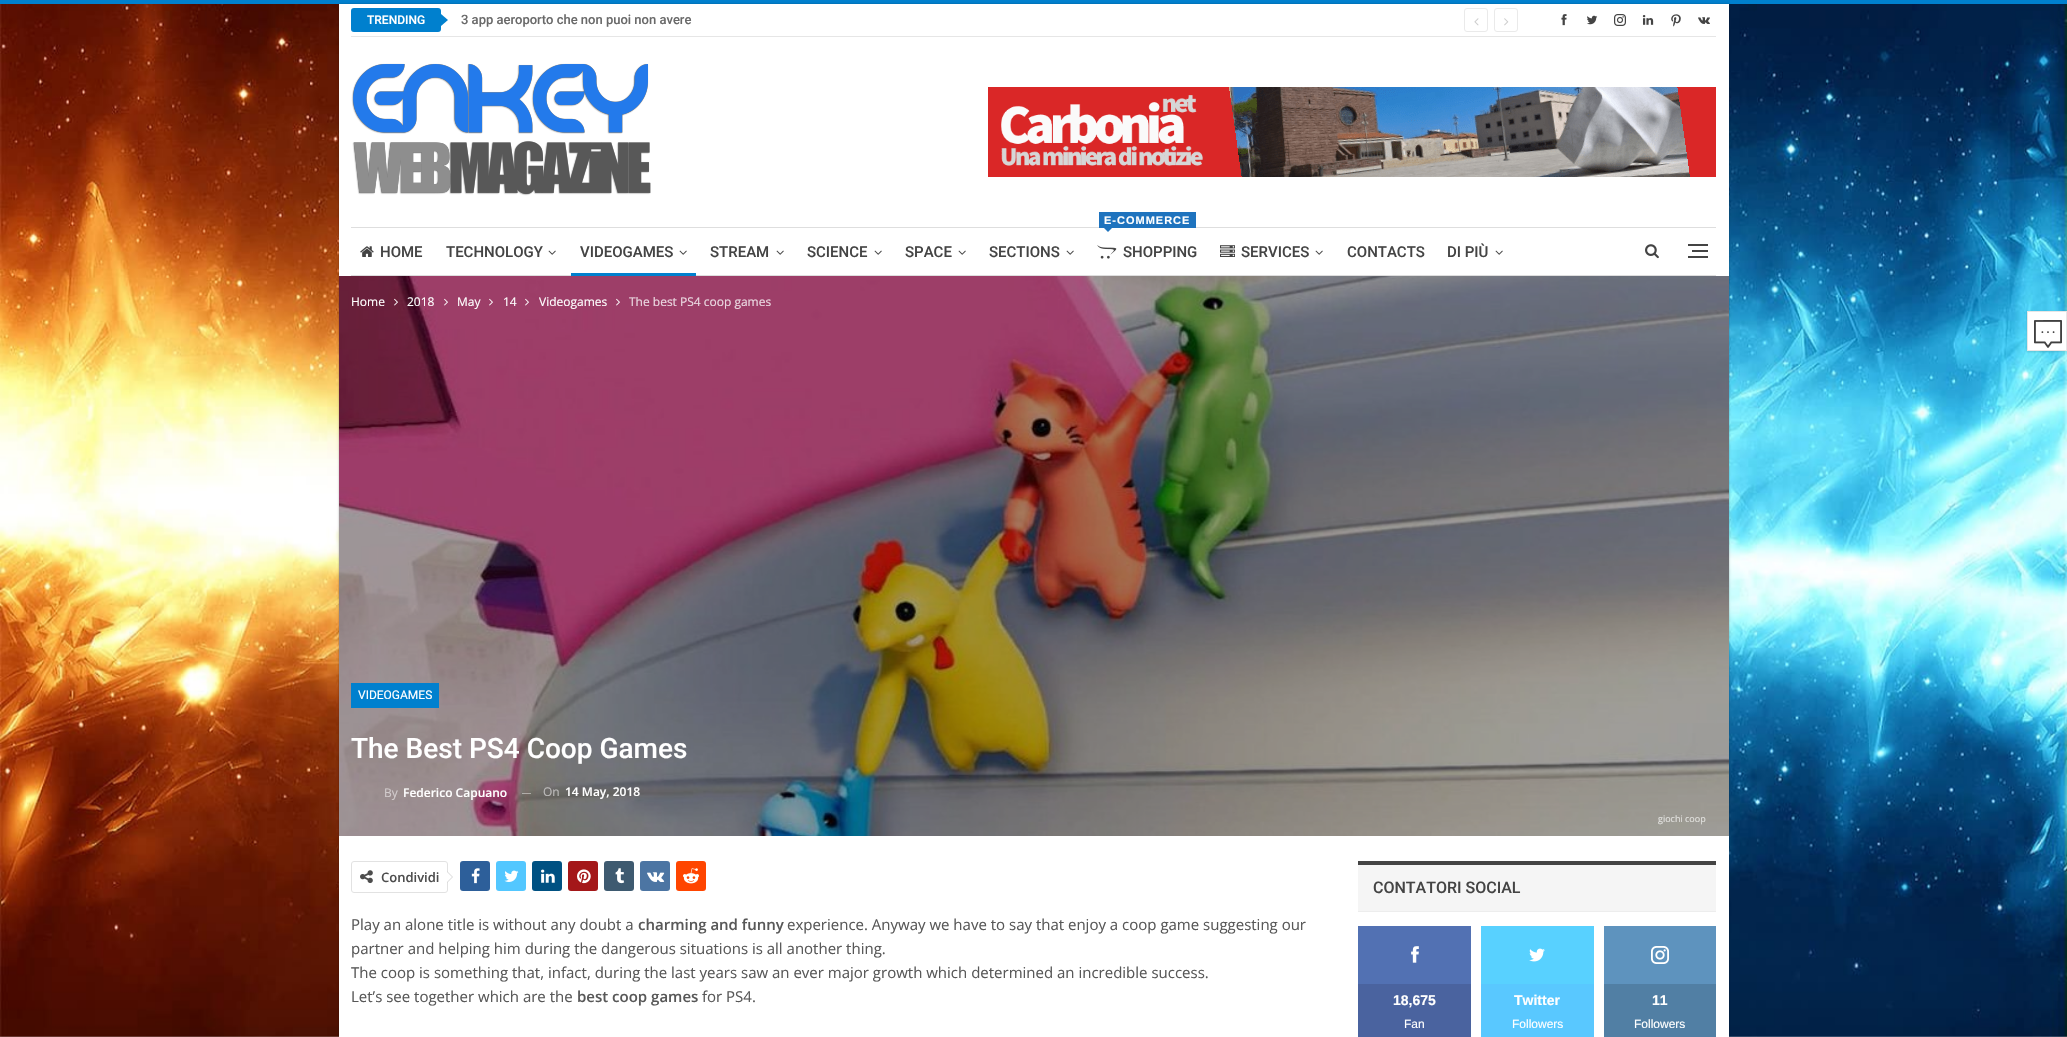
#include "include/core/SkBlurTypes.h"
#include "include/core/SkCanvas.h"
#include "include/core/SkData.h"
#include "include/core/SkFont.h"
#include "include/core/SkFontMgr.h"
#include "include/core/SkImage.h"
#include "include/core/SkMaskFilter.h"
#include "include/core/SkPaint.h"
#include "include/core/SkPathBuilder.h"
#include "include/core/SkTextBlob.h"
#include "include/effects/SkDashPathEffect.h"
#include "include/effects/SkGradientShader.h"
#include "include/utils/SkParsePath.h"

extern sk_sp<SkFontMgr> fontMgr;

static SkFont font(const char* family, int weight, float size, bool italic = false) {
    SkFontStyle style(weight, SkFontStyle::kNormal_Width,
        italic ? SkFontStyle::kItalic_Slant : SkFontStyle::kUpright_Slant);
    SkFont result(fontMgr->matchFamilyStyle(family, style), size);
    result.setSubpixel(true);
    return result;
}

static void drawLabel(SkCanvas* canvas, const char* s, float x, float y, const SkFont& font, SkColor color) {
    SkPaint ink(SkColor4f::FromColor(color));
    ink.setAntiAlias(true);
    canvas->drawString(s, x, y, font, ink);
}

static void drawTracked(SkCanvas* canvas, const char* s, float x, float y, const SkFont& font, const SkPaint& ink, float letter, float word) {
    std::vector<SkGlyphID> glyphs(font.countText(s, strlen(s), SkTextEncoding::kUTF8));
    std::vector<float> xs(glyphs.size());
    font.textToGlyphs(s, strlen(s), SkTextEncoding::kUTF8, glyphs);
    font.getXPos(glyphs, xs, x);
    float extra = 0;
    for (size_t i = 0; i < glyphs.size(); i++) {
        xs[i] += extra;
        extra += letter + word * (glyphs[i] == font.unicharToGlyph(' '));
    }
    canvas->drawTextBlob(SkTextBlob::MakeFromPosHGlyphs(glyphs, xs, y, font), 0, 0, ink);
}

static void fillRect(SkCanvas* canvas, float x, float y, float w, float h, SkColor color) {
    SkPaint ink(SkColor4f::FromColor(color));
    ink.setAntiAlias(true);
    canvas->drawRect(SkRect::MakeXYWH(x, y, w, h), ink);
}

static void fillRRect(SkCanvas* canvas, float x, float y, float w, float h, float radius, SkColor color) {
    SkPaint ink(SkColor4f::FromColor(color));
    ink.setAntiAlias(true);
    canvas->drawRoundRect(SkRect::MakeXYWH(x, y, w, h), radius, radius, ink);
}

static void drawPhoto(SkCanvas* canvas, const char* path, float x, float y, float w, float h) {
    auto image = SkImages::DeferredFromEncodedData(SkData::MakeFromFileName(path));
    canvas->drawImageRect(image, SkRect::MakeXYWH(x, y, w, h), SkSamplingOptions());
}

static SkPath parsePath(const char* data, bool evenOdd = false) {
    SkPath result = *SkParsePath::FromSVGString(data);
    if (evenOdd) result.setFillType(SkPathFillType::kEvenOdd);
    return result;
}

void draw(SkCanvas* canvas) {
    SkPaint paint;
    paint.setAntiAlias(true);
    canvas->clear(0xFFFFFFFF);
    drawPhoto(canvas, "assets/img1.png", 0, 4, 2067, 1033);
    fillRect(canvas, 0, 0, 2067, 4, 0xFF0080CE);
    paint.setColor(0x45000000);
    paint.setMaskFilter(SkMaskFilter::MakeBlur(kNormal_SkBlurStyle, 1));
    canvas->drawRect(SkRect::MakeXYWH(339, 4, 1390, 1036), paint);
    paint.setMaskFilter(nullptr);
    fillRect(canvas, 339, 4, 1390, 1033, 0xFFFFFFFF);
    fillRect(canvas, 351, 36, 1365, 1, 0xFFE6E6E6);
    fillRRect(canvas, 351, 8, 90, 24, 3, 0xFF0080CE);
    SkFont font1 = font("Roboto", 500, 12);
    drawLabel(canvas, "TRENDING", 367, 24, font1, 0xFFFFFFFF);
    paint.setColor(0xFF0080CE);
    canvas->drawPath(parsePath("M441 26V14L448 20Z"), paint);
    SkFont font2 = font("Roboto", 500, 13);
    drawLabel(canvas, "3 app aeroporto che non puoi non avere", 461, 24, font2, 0xFF696969);
    paint.setStroke(true);
    paint.setStrokeWidth(1);
    paint.setColor(0xFFEAEAEA);
    canvas->drawRoundRect(SkRect::MakeXYWH(1464.5f, 8.5f, 23, 23), 2.5f, 2.5f, paint);
    drawPhoto(canvas, "assets/img2.png", 1474, 18, 5, 8);
    canvas->drawRoundRect(SkRect::MakeXYWH(1494.5f, 8.5f, 23, 23), 2.5f, 2.5f, paint);
    drawPhoto(canvas, "assets/img3.png", 1504, 18, 5, 8);
    drawPhoto(canvas, "assets/img4.png", 1561, 14, 6, 12);
    drawPhoto(canvas, "assets/img5.png", 1587, 15, 11, 10);
    drawPhoto(canvas, "assets/img6.png", 1614, 14, 12, 12);
    drawPhoto(canvas, "assets/img7.png", 1642, 15, 12, 10);
    drawPhoto(canvas, "assets/img8.png", 1671, 14, 10, 13);
    drawPhoto(canvas, "assets/img9.png", 1698, 17, 12, 7);
    drawPhoto(canvas, "assets/img10.png", 351, 63, 300, 133);
    drawPhoto(canvas, "assets/img11.png", 988, 87, 728, 90);
    fillRect(canvas, 351, 227, 1365, 1, 0xFFDEDEDE);
    fillRect(canvas, 351, 275, 1365, 1, 0xFFDEDEDE);
    drawPhoto(canvas, "assets/img12.png", 360, 246, 14, 11);
    SkFont font3 = font("Roboto", 500, 15);
    drawLabel(canvas, "HOME", 380, 257, font3, 0xFF444444);
    drawLabel(canvas, "TECHNOLOGY", 446, 257, font3, 0xFF444444);
    drawPhoto(canvas, "assets/img13.png", 548, 250, 8, 5);
    drawLabel(canvas, "VIDEOGAMES", 580, 257, font3, 0xFF444444);
    drawPhoto(canvas, "assets/img13.png", 679, 250, 8, 5);
    fillRect(canvas, 571, 273, 125, 3, 0xFF0080CE);
    drawLabel(canvas, "STREAM", 710, 257, font3, 0xFF444444);
    drawPhoto(canvas, "assets/img13.png", 776, 250, 8, 5);
    drawLabel(canvas, "SCIENCE", 807, 257, font3, 0xFF444444);
    drawPhoto(canvas, "assets/img13.png", 874, 250, 8, 5);
    drawLabel(canvas, "SPACE", 905, 257, font3, 0xFF444444);
    drawPhoto(canvas, "assets/img13.png", 958, 250, 8, 5);
    drawLabel(canvas, "SECTIONS", 989, 257, font3, 0xFF444444);
    drawPhoto(canvas, "assets/img13.png", 1066, 250, 8, 5);
    fillRect(canvas, 1099, 212, 97, 16, 0xFF1E73BE);
    SkFont font4 = font("Liberation Sans", 700, 11);
    paint.setStroke(false);
    paint.setColor(0xFFFFFFFF);
    drawTracked(canvas, "E-COMMERCE", 1104, 224, font4, paint, 1, 0);
    paint.setColor(0xFF1E73BE);
    canvas->drawPath(parsePath("M1104 228H1112L1108 232Z"), paint);
    drawPhoto(canvas, "assets/img14.png", 1097, 245, 20, 14);
    drawLabel(canvas, "SHOPPING", 1123, 257, font3, 0xFF444444);
    drawPhoto(canvas, "assets/img15.png", 1220, 245, 15, 12);
    drawLabel(canvas, "SERVICES", 1241, 257, font3, 0xFF444444);
    drawPhoto(canvas, "assets/img13.png", 1315, 250, 8, 5);
    drawLabel(canvas, "CONTACTS", 1347, 257, font3, 0xFF444444);
    drawLabel(canvas, "DI PIÙ", 1447, 257, font3, 0xFF444444);
    drawPhoto(canvas, "assets/img13.png", 1495, 250, 8, 5);
    drawPhoto(canvas, "assets/img16.png", 1645, 244, 14, 15);
    fillRect(canvas, 1692, 250, 16, 2, 0xFF444444);
    fillRect(canvas, 1688, 244, 20, 2, 0xFF444444);
    fillRect(canvas, 1688, 256, 20, 2, 0xFF444444);
    drawPhoto(canvas, "assets/img17.png", 339, 276, 1390, 560);
    SkFont font5 = font("Open Sans", 400, 12);
    drawLabel(canvas, "Home", 351, 306, font5, 0xFFFFFFFF);
    drawPhoto(canvas, "assets/img18.png", 394, 298, 4, 8);
    drawLabel(canvas, "2018", 407, 306, font5, 0xFFFFFFFF);
    drawPhoto(canvas, "assets/img19.png", 444, 298, 4, 8);
    drawLabel(canvas, "May", 457, 306, font5, 0xFFFFFFFF);
    drawPhoto(canvas, "assets/img19.png", 489, 298, 4, 8);
    drawLabel(canvas, "14", 503, 306, font5, 0xFFFFFFFF);
    drawPhoto(canvas, "assets/img20.png", 525, 298, 4, 8);
    drawLabel(canvas, "Videogames", 539, 306, font5, 0xFFFFFFFF);
    drawPhoto(canvas, "assets/img19.png", 616, 298, 4, 8);
    drawLabel(canvas, "The best PS4 coop games", 629, 306, font5, 0xFFEBD8E1);
    fillRect(canvas, 351, 683, 88, 25, 0xFF0080CE);
    SkFont font6 = font("Roboto", 400, 12);
    drawLabel(canvas, "VIDEOGAMES", 358, 699, font6, 0xFFFFFFFF);
    SkFont font7 = font("Roboto", 500, 28);
    drawLabel(canvas, "The Best PS4 Coop Games", 351, 758, font7, 0xFFFFFFFF);
    drawLabel(canvas, "By", 384, 797, font5, 0xFFD2CCCD);
    SkFont font8 = font("Open Sans", 600, 12);
    drawLabel(canvas, "Federico Capuano", 403, 797, font8, 0xFFFFFFFF);
    fillRect(canvas, 522, 793, 9, 1, 0x6EFFFFFF);
    drawLabel(canvas, "On", 543, 796, font5, 0xFFBCBBBA);
    drawLabel(canvas, "14 May, 2018", 565, 796, font8, 0xFFFFFFFF);
    SkFont font9 = font("Open Sans", 400, 9);
    drawLabel(canvas, "giochi coop", 1658, 822, font9, 0xFFE1E1DE);
    paint.setStroke(true);
    paint.setColor(0xFFE2E2E2);
    canvas->drawRoundRect(SkRect::MakeXYWH(351.5f, 861.5f, 96, 31), 2.5f, 2.5f, paint);
    drawPhoto(canvas, "assets/img21.png", 360, 870, 13, 14);
    SkFont font10 = font("Open Sans", 600, 13);
    drawLabel(canvas, "Condividi", 381, 882, font10, 0xFF4D4D4D);
    paint.setStroke(false);
    paint.setColor(0xFFD7D7D7);
    canvas->drawPath(parsePath("M447 883V871L453 877Z"), paint);
    paint.setColor(0xFFFFFFFF);
    canvas->drawPath(parsePath("M447 882V872L452 877Z"), paint);
    fillRRect(canvas, 460, 861, 30, 30, 3, 0xFF2D5F9A);
    drawPhoto(canvas, "assets/img22.png", 471, 868, 9, 16);
    fillRRect(canvas, 496, 861, 30, 30, 3, 0xFF53C7FF);
    drawPhoto(canvas, "assets/img23.png", 504, 870, 15, 12);
    fillRRect(canvas, 532, 861, 30, 30, 3, 0xFF005182);
    drawPhoto(canvas, "assets/img24.png", 541, 869, 14, 14);
    fillRRect(canvas, 568, 861, 30, 30, 3, 0xFFA41719);
    drawPhoto(canvas, "assets/img25.png", 577, 869, 14, 15);
    fillRRect(canvas, 604, 861, 30, 30, 3, 0xFF3E5A70);
    drawPhoto(canvas, "assets/img26.png", 615, 868, 10, 16);
    fillRRect(canvas, 640, 861, 30, 30, 3, 0xFF4C75A3);
    drawPhoto(canvas, "assets/img27.png", 647, 872, 18, 10);
    fillRRect(canvas, 676, 861, 30, 30, 3, 0xFFFF4500);
    drawPhoto(canvas, "assets/img28.png", 683, 868, 16, 16);
    SkFont font11 = font("Open Sans", 400, 15);
    drawLabel(canvas, "Play an alone title is without any doubt a", 351, 930, font11, 0xFF585858);
    SkFont font12 = font("Open Sans", 600, 15);
    drawLabel(canvas, "charming and funny", 638, 930, font12, 0xFF585858);
    drawLabel(canvas, "experience. Anyway we have to say that enjoy a coop game suggesting our", 787, 930, font11, 0xFF585858);
    drawLabel(canvas, "partner and helping him during the dangerous situations is all another thing.", 351, 954, font11, 0xFF585858);
    drawLabel(canvas, "The coop is something that, infact, during the last years saw an ever major growth which determined an incredible success.", 351, 978, font11, 0xFF585858);
    drawLabel(canvas, "Let’s see together which are the", 351, 1002, font11, 0xFF585858);
    drawLabel(canvas, "best coop games", 577, 1002, font12, 0xFF585858);
    drawLabel(canvas, "for PS4.", 702, 1002, font11, 0xFF585858);
    fillRect(canvas, 1358, 865, 358, 46, 0xFFF5F5F5);
    fillRect(canvas, 1358, 861, 358, 4, 0xFF444444);
    SkFont font13 = font("Roboto", 500, 16);
    drawLabel(canvas, "CONTATORI SOCIAL", 1373, 893, font13, 0xFF444444);
    fillRect(canvas, 1358, 911, 358, 1, 0xFFEDEDED);
    fillRect(canvas, 1358, 926, 113, 58, 0xFF5271B3);
    drawPhoto(canvas, "assets/img29.png", 1411, 946, 8, 17);
    fillRect(canvas, 1358, 984, 113, 53, 0xFF4A639F);
    SkFont font14 = font("Liberation Sans", 700, 14);
    drawLabel(canvas, "18,675", 1393, 1005, font14, 0xFFFFFFFF);
    SkFont font15 = font("Liberation Sans", 400, 12);
    drawLabel(canvas, "Fan", 1404, 1028, font15, 0xFFFFFFFF);
    fillRect(canvas, 1481, 926, 113, 58, 0xFF58D1FF);
    drawPhoto(canvas, "assets/img30.png", 1529, 948, 16, 14);
    fillRect(canvas, 1481, 984, 113, 53, 0xFF59C8FF);
    drawLabel(canvas, "Twitter", 1514, 1005, font14, 0xFFFFFFFF);
    drawLabel(canvas, "Followers", 1512, 1028, font15, 0xFFFFFFFF);
    fillRect(canvas, 1604, 926, 112, 58, 0xFF5E93BE);
    drawPhoto(canvas, "assets/img31.png", 1651, 946, 18, 18);
    fillRect(canvas, 1604, 984, 112, 53, 0xFF517FA4);
    drawLabel(canvas, "11", 1652, 1005, font14, 0xFFFFFFFF);
    drawLabel(canvas, "Followers", 1634, 1028, font15, 0xFFFFFFFF);
    paint.setColor(0x26000000);
    paint.setMaskFilter(SkMaskFilter::MakeBlur(kNormal_SkBlurStyle, 1));
    canvas->drawRect(SkRect::MakeXYWH(2027, 312, 40, 40), paint);
    paint.setMaskFilter(nullptr);
    paint.setColor(0xFFFFFFFF);
    canvas->drawRect(SkRect::MakeXYWH(2027.5f, 311.5f, 39, 39), paint);
    paint.setStroke(true);
    paint.setColor(0xFFE6E6E6);
    canvas->drawRect(SkRect::MakeXYWH(2027.5f, 311.5f, 39, 39), paint);
    drawPhoto(canvas, "assets/img32.png", 2034, 320, 28, 28);
}
